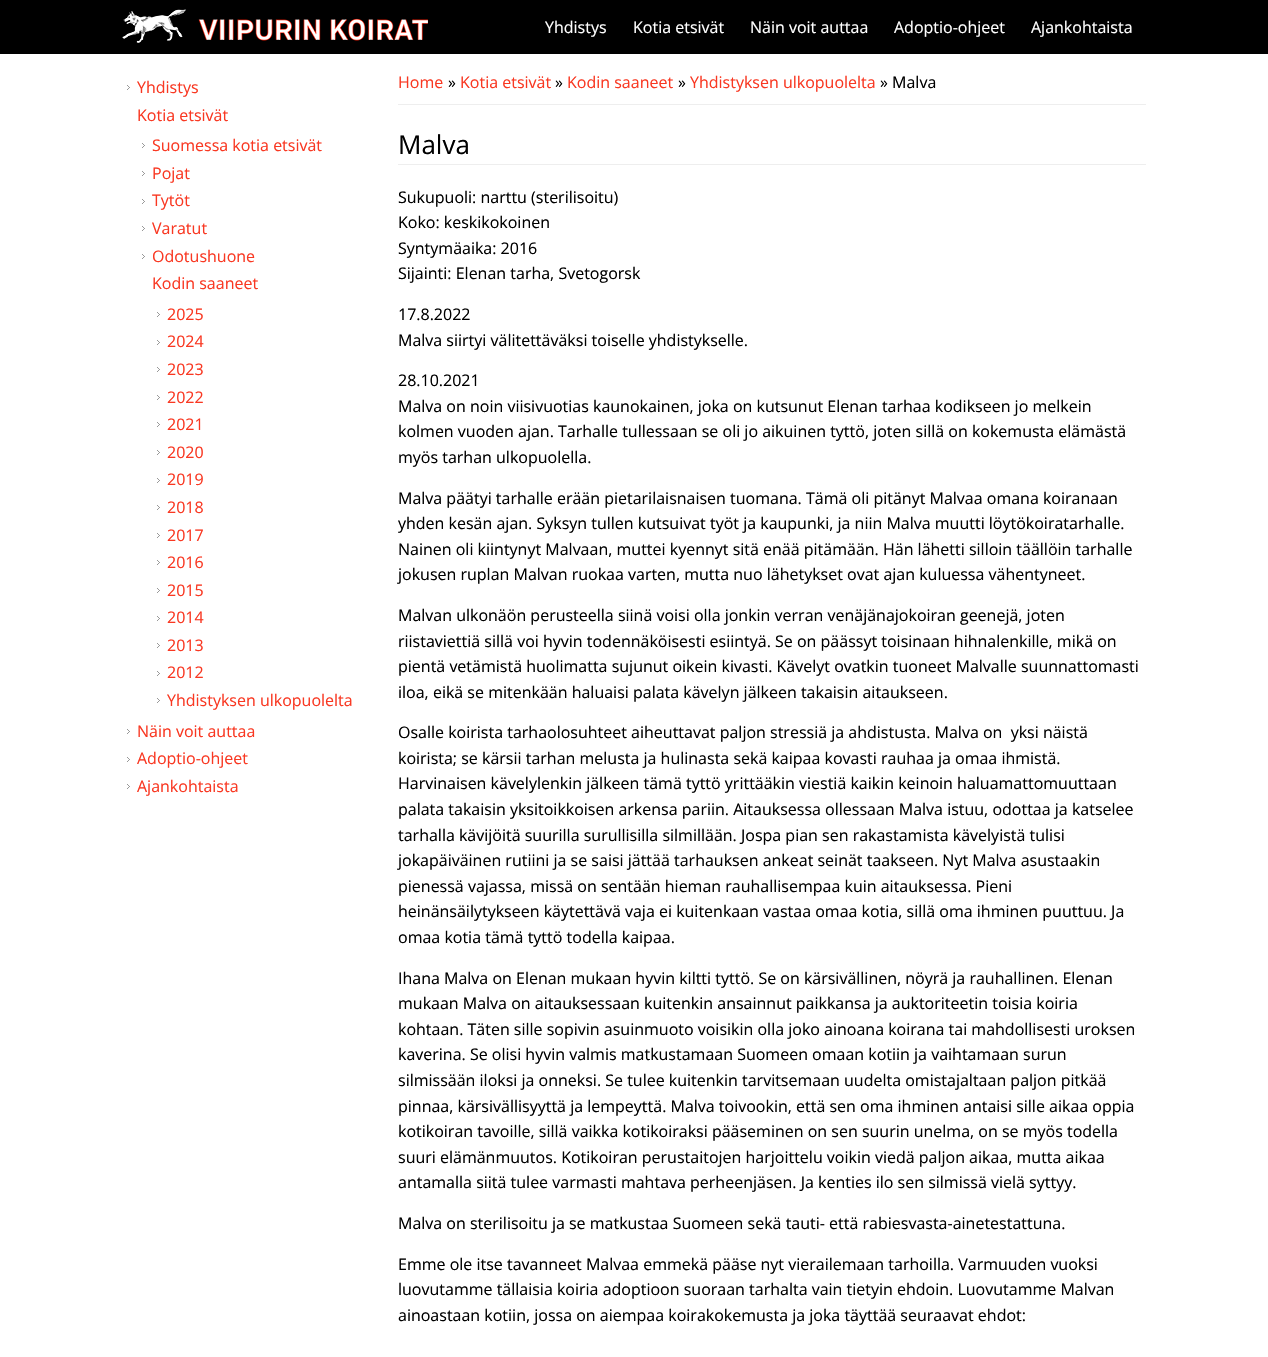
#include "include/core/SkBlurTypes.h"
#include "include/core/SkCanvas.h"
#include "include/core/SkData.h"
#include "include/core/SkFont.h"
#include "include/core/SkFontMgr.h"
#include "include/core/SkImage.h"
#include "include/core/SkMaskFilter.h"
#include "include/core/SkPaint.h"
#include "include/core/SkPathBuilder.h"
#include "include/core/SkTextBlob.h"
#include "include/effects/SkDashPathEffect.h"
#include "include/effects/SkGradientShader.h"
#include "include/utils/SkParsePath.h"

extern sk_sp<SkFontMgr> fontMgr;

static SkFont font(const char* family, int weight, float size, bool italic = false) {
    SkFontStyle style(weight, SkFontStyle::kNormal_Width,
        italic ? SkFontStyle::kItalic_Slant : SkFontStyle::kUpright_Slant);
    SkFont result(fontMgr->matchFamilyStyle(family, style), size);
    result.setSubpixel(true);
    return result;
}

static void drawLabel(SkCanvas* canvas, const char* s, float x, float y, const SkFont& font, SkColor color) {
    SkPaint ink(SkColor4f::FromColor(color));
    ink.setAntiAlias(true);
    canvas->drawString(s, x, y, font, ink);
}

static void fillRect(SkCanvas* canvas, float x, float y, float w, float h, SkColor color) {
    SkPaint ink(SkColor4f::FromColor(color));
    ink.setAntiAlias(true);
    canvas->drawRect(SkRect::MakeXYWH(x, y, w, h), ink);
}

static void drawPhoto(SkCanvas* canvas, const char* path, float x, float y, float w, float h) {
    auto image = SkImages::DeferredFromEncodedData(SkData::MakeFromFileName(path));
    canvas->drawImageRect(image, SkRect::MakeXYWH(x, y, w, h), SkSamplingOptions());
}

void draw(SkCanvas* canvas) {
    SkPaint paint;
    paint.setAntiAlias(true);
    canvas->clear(0xFFFFFFFF);
    fillRect(canvas, 0, 0, 1268, 54, 0xFF000000);
    drawPhoto(canvas, "assets/img1.png", 122, 9, 306, 34);
    SkFont font1 = font("Open Sans", 400, 16);
    drawLabel(canvas, "Yhdistys", 545, 33, font1, 0xFFFFFFFF);
    drawLabel(canvas, "Kotia etsivät", 633, 33, font1, 0xFFFFFFFF);
    drawLabel(canvas, "Näin voit auttaa", 750, 33, font1, 0xFFFFFFFF);
    drawLabel(canvas, "Adoptio-ohjeet", 894, 33, font1, 0xFFFFFFFF);
    drawLabel(canvas, "Ajankohtaista", 1031, 33, font1, 0xFFFFFFFF);
    drawPhoto(canvas, "assets/img2.png", 127, 85, 3, 5);
    drawLabel(canvas, "Yhdistys", 137, 93, font1, 0xFFF93822);
    drawLabel(canvas, "Kotia etsivät", 137, 121, font1, 0xFFF93822);
    drawPhoto(canvas, "assets/img2.png", 142, 143, 3, 5);
    drawLabel(canvas, "Suomessa kotia etsivät", 152, 151, font1, 0xFFF93822);
    drawPhoto(canvas, "assets/img2.png", 142, 171, 3, 5);
    drawLabel(canvas, "Pojat", 152, 179, font1, 0xFFF93822);
    drawPhoto(canvas, "assets/img2.png", 142, 199, 3, 5);
    drawLabel(canvas, "Tytöt", 152, 206, font1, 0xFFF93822);
    drawPhoto(canvas, "assets/img2.png", 142, 226, 3, 5);
    drawLabel(canvas, "Varatut", 152, 234, font1, 0xFFF93822);
    drawPhoto(canvas, "assets/img2.png", 142, 254, 3, 5);
    drawLabel(canvas, "Odotushuone", 152, 262, font1, 0xFFF93822);
    drawLabel(canvas, "Kodin saaneet", 152, 289, font1, 0xFFF93822);
    drawPhoto(canvas, "assets/img2.png", 157, 312, 3, 5);
    drawLabel(canvas, "2025", 167, 320, font1, 0xFFF93822);
    drawPhoto(canvas, "assets/img2.png", 157, 340, 3, 5);
    drawLabel(canvas, "2024", 167, 347, font1, 0xFFF93822);
    drawPhoto(canvas, "assets/img2.png", 157, 367, 3, 5);
    drawLabel(canvas, "2023", 167, 375, font1, 0xFFF93822);
    drawPhoto(canvas, "assets/img2.png", 157, 395, 3, 5);
    drawLabel(canvas, "2022", 167, 403, font1, 0xFFF93822);
    drawPhoto(canvas, "assets/img2.png", 157, 422, 3, 5);
    drawLabel(canvas, "2021", 167, 430, font1, 0xFFF93822);
    drawPhoto(canvas, "assets/img2.png", 157, 450, 3, 5);
    drawLabel(canvas, "2020", 167, 458, font1, 0xFFF93822);
    drawPhoto(canvas, "assets/img2.png", 157, 478, 3, 5);
    drawLabel(canvas, "2019", 167, 485, font1, 0xFFF93822);
    drawPhoto(canvas, "assets/img2.png", 157, 505, 3, 5);
    drawLabel(canvas, "2018", 167, 513, font1, 0xFFF93822);
    drawPhoto(canvas, "assets/img2.png", 157, 533, 3, 5);
    drawLabel(canvas, "2017", 167, 541, font1, 0xFFF93822);
    drawPhoto(canvas, "assets/img2.png", 157, 560, 3, 5);
    drawLabel(canvas, "2016", 167, 568, font1, 0xFFF93822);
    drawPhoto(canvas, "assets/img2.png", 157, 588, 3, 5);
    drawLabel(canvas, "2015", 167, 596, font1, 0xFFF93822);
    drawPhoto(canvas, "assets/img2.png", 157, 616, 3, 5);
    drawLabel(canvas, "2014", 167, 623, font1, 0xFFF93822);
    drawPhoto(canvas, "assets/img2.png", 157, 643, 3, 5);
    drawLabel(canvas, "2013", 167, 651, font1, 0xFFF93822);
    drawPhoto(canvas, "assets/img2.png", 157, 671, 3, 5);
    drawLabel(canvas, "2012", 167, 678, font1, 0xFFF93822);
    drawPhoto(canvas, "assets/img2.png", 157, 698, 3, 5);
    drawLabel(canvas, "Yhdistyksen ulkopuolelta", 167, 706, font1, 0xFFF93822);
    drawPhoto(canvas, "assets/img2.png", 127, 729, 3, 5);
    drawLabel(canvas, "Näin voit auttaa", 137, 737, font1, 0xFFF93822);
    drawPhoto(canvas, "assets/img2.png", 127, 757, 3, 5);
    drawLabel(canvas, "Adoptio-ohjeet", 137, 764, font1, 0xFFF93822);
    drawPhoto(canvas, "assets/img2.png", 127, 784, 3, 5);
    drawLabel(canvas, "Ajankohtaista", 137, 792, font1, 0xFFF93822);
    fillRect(canvas, 398, 104, 748, 1, 0xFFEEEEEE);
    drawLabel(canvas, "Home", 398, 88, font1, 0xFFF93822);
    drawLabel(canvas, "»", 448, 88, font1, 0xFF000000);
    drawLabel(canvas, "Kotia etsivät", 460, 88, font1, 0xFFF93822);
    drawLabel(canvas, "»", 555, 88, font1, 0xFF000000);
    drawLabel(canvas, "Kodin saaneet", 567, 88, font1, 0xFFF93822);
    drawLabel(canvas, "»", 678, 88, font1, 0xFF000000);
    drawLabel(canvas, "Yhdistyksen ulkopuolelta", 690, 88, font1, 0xFFF93822);
    drawLabel(canvas, "» Malva", 880, 88, font1, 0xFF000000);
    fillRect(canvas, 398, 164, 748, 1, 0xFFEEEEEE);
    SkFont font2 = font("Open Sans", 400, 26);
    drawLabel(canvas, "Malva", 398, 154, font2, 0xFF000000);
    drawLabel(canvas, "Sukupuoli: narttu (sterilisoitu)", 398, 203, font1, 0xFF000000);
    drawLabel(canvas, "Koko: keskikokoinen", 398, 228, font1, 0xFF000000);
    drawLabel(canvas, "Syntymäaika: 2016", 398, 254, font1, 0xFF000000);
    drawLabel(canvas, "Sijainti: Elenan tarha, Svetogorsk", 398, 279, font1, 0xFF000000);
    drawLabel(canvas, "17.8.2022", 398, 320, font1, 0xFF000000);
    drawLabel(canvas, "Malva siirtyi välitettäväksi toiselle yhdistykselle.", 398, 346, font1, 0xFF000000);
    drawLabel(canvas, "28.10.2021", 398, 386, font1, 0xFF000000);
    drawLabel(canvas, "Malva on noin viisivuotias kaunokainen, joka on kutsunut Elenan tarhaa kodikseen jo melkein", 398, 412, font1, 0xFF000000);
    drawLabel(canvas, "kolmen vuoden ajan. Tarhalle tullessaan se oli jo aikuinen tyttö, joten sillä on kokemusta elämästä", 398, 437, font1, 0xFF000000);
    drawLabel(canvas, "myös tarhan ulkopuolella.", 398, 463, font1, 0xFF000000);
    drawLabel(canvas, "Malva päätyi tarhalle erään pietarilaisnaisen tuomana. Tämä oli pitänyt Malvaa omana koiranaan", 398, 504, font1, 0xFF000000);
    drawLabel(canvas, "yhden kesän ajan. Syksyn tullen kutsuivat työt ja kaupunki, ja niin Malva muutti löytökoiratarhalle.", 398, 529, font1, 0xFF000000);
    drawLabel(canvas, "Nainen oli kiintynyt Malvaan, muttei kyennyt sitä enää pitämään. Hän lähetti silloin täällöin tarhalle", 398, 555, font1, 0xFF000000);
    drawLabel(canvas, "jokusen ruplan Malvan ruokaa varten, mutta nuo lähetykset ovat ajan kuluessa vähentyneet.", 398, 580, font1, 0xFF000000);
    drawLabel(canvas, "Malvan ulkonäön perusteella siinä voisi olla jonkin verran venäjänajokoiran geenejä, joten", 398, 621, font1, 0xFF000000);
    drawLabel(canvas, "riistaviettiä sillä voi hyvin todennäköisesti esiintyä. Se on päässyt toisinaan hihnalenkille, mikä on", 398, 647, font1, 0xFF000000);
    drawLabel(canvas, "pientä vetämistä huolimatta sujunut oikein kivasti. Kävelyt ovatkin tuoneet Malvalle suunnattomasti", 398, 672, font1, 0xFF000000);
    drawLabel(canvas, "iloa, eikä se mitenkään haluaisi palata kävelyn jälkeen takaisin aitaukseen.", 398, 698, font1, 0xFF000000);
    drawLabel(canvas, "Osalle koirista tarhaolosuhteet aiheuttavat paljon stressiä ja ahdistusta. Malva on  yksi näistä", 398, 738, font1, 0xFF000000);
    drawLabel(canvas, "koirista; se kärsii tarhan melusta ja hulinasta sekä kaipaa kovasti rauhaa ja omaa ihmistä.", 398, 764, font1, 0xFF000000);
    drawLabel(canvas, "Harvinaisen kävelylenkin jälkeen tämä tyttö yrittääkin viestiä kaikin keinoin haluamattomuuttaan", 398, 789, font1, 0xFF000000);
    drawLabel(canvas, "palata takaisin yksitoikkoisen arkensa pariin. Aitauksessa ollessaan Malva istuu, odottaa ja katselee", 398, 815, font1, 0xFF000000);
    drawLabel(canvas, "tarhalla kävijöitä suurilla surullisilla silmillään. Jospa pian sen rakastamista kävelyistä tulisi", 398, 841, font1, 0xFF000000);
    drawLabel(canvas, "jokapäiväinen rutiini ja se saisi jättää tarhauksen ankeat seinät taakseen. Nyt Malva asustaakin", 398, 866, font1, 0xFF000000);
    drawLabel(canvas, "pienessä vajassa, missä on sentään hieman rauhallisempaa kuin aitauksessa. Pieni", 398, 892, font1, 0xFF000000);
    drawLabel(canvas, "heinänsäilytykseen käytettävä vaja ei kuitenkaan vastaa omaa kotia, sillä oma ihminen puuttuu. Ja", 398, 917, font1, 0xFF000000);
    drawLabel(canvas, "omaa kotia tämä tyttö todella kaipaa.", 398, 943, font1, 0xFF000000);
    drawLabel(canvas, "Ihana Malva on Elenan mukaan hyvin kiltti tyttö. Se on kärsivällinen, nöyrä ja rauhallinen. Elenan", 398, 984, font1, 0xFF000000);
    drawLabel(canvas, "mukaan Malva on aitauksessaan kuitenkin ansainnut paikkansa ja auktoriteetin toisia koiria", 398, 1009, font1, 0xFF000000);
    drawLabel(canvas, "kohtaan. Täten sille sopivin asuinmuoto voisikin olla joko ainoana koirana tai mahdollisesti uroksen", 398, 1035, font1, 0xFF000000);
    drawLabel(canvas, "kaverina. Se olisi hyvin valmis matkustamaan Suomeen omaan kotiin ja vaihtamaan surun", 398, 1060, font1, 0xFF000000);
    drawLabel(canvas, "silmissään iloksi ja onneksi. Se tulee kuitenkin tarvitsemaan uudelta omistajaltaan paljon pitkää", 398, 1086, font1, 0xFF000000);
    drawLabel(canvas, "pinnaa, kärsivällisyyttä ja lempeyttä. Malva toivookin, että sen oma ihminen antaisi sille aikaa oppia", 398, 1112, font1, 0xFF000000);
    drawLabel(canvas, "kotikoiran tavoille, sillä vaikka kotikoiraksi pääseminen on sen suurin unelma, on se myös todella", 398, 1137, font1, 0xFF000000);
    drawLabel(canvas, "suuri elämänmuutos. Kotikoiran perustaitojen harjoittelu voikin viedä paljon aikaa, mutta aikaa", 398, 1163, font1, 0xFF000000);
    drawLabel(canvas, "antamalla siitä tulee varmasti mahtava perheenjäsen. Ja kenties ilo sen silmissä vielä syttyy.", 398, 1188, font1, 0xFF000000);
    drawLabel(canvas, "Malva on sterilisoitu ja se matkustaa Suomeen sekä tauti- että rabiesvasta-ainetestattuna.", 398, 1229, font1, 0xFF000000);
    drawLabel(canvas, "Emme ole itse tavanneet Malvaa emmekä pääse nyt vierailemaan tarhoilla. Varmuuden vuoksi", 398, 1270, font1, 0xFF000000);
    drawLabel(canvas, "luovutamme tällaisia koiria adoptioon suoraan tarhalta vain tietyin ehdoin. Luovutamme Malvan", 398, 1295, font1, 0xFF000000);
    drawLabel(canvas, "ainoastaan kotiin, jossa on aiempaa koirakokemusta ja joka täyttää seuraavat ehdot:", 398, 1321, font1, 0xFF000000);
}
